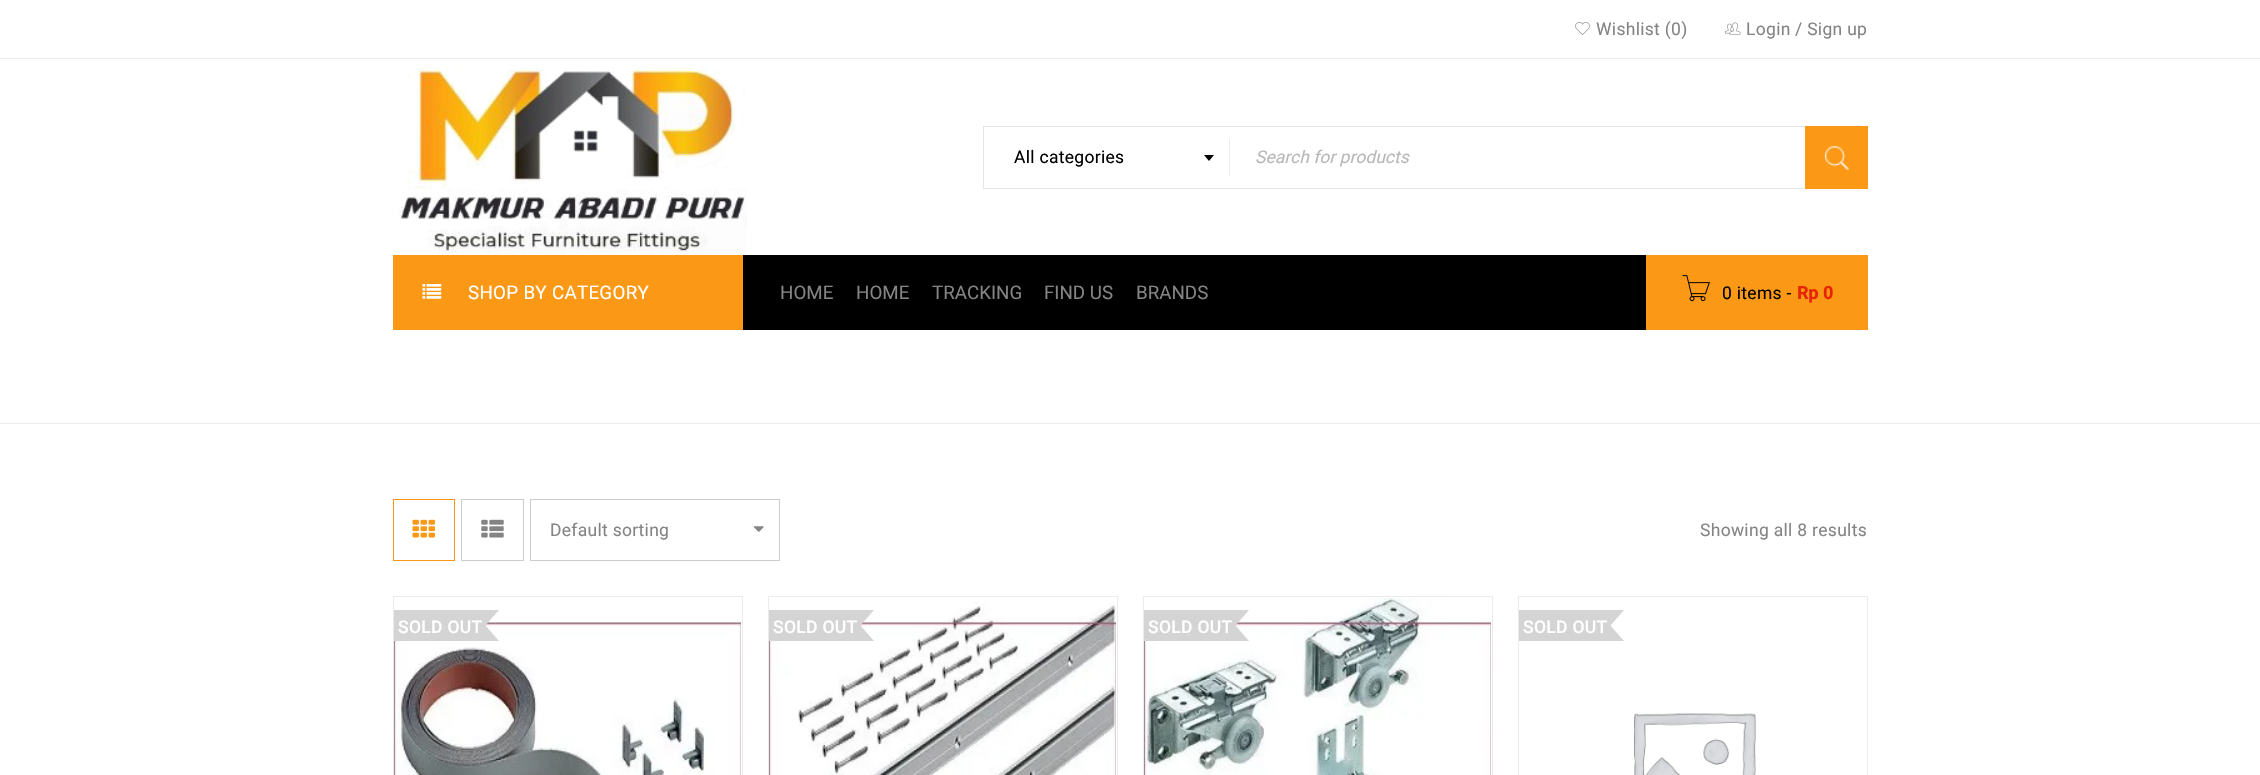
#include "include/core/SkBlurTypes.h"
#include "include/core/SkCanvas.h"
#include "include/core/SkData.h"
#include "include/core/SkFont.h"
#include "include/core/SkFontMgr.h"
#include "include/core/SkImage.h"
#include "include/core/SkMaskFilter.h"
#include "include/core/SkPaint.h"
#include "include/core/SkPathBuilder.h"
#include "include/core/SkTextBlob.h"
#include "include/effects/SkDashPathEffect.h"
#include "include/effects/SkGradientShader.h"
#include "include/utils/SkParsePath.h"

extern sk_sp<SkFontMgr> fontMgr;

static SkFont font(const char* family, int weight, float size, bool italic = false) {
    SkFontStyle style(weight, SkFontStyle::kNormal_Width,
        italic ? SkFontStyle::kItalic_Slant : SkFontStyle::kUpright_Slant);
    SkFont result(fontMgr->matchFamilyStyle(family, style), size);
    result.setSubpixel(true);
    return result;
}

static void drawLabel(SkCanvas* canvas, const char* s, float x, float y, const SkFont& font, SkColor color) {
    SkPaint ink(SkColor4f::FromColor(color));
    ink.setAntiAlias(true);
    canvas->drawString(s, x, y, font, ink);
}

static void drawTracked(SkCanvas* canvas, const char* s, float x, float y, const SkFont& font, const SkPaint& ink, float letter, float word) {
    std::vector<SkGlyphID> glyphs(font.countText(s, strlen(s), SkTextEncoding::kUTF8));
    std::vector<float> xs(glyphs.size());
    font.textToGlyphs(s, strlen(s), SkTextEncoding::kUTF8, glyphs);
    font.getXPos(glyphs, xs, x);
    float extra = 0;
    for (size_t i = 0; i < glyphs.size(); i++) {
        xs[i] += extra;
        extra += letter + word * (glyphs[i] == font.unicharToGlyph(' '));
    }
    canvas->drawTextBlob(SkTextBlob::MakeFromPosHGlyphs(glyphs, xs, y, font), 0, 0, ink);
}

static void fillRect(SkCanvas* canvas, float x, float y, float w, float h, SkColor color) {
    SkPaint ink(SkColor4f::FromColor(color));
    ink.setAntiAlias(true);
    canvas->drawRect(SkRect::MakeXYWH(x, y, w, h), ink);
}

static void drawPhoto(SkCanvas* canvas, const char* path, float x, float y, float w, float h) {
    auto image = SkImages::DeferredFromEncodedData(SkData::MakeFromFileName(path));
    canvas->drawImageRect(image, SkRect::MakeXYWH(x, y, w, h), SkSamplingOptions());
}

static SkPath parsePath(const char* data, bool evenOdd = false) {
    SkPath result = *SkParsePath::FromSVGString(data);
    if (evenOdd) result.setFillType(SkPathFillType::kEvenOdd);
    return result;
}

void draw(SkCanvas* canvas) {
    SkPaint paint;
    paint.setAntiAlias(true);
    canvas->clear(0xFFFFFFFF);
    fillRect(canvas, 0, 58, 2260, 1, 0xFFEBEBEB);
    drawPhoto(canvas, "assets/img1.png", 1575, 22, 15, 13);
    SkFont font1 = font("Roboto", 400, 17.5f);
    paint.setColor(0xFF848484);
    drawTracked(canvas, "Wishlist (0)", 1596, 35, font1, paint, 0.3f, 0);
    drawPhoto(canvas, "assets/img2.png", 1725, 22, 16, 13);
    drawTracked(canvas, "Login", 1746, 35, font1, paint, 0.3f, 0);
    drawTracked(canvas, "/ Sign up", 1795, 35, font1, paint, 0.3f, 0);
    drawPhoto(canvas, "assets/img3.png", 398, 68, 349, 187);
    paint.setStroke(true);
    paint.setStrokeWidth(1);
    paint.setColor(0xFFE5E5E5);
    canvas->drawRect(SkRect::MakeXYWH(983.5f, 126.5f, 884, 62), paint);
    paint.setStroke(false);
    paint.setColor(0xFF000000);
    drawTracked(canvas, "All categories", 1014, 163, font1, paint, 0.3f, 0);
    fillRect(canvas, 1229, 139, 1, 37, 0xFFEBEBEB);
    canvas->drawPath(parsePath("M1204 155H1214L1209 161Z"), paint);
    SkFont font2 = font("Roboto", 400, 17.5f, true);
    drawLabel(canvas, "Search for products", 1255, 163, font2, 0xFFB8B8B8);
    fillRect(canvas, 1805, 126, 63, 63, 0xFFFB9816);
    drawPhoto(canvas, "assets/img4.png", 1824, 145, 25, 26);
    fillRect(canvas, 743, 255, 903, 75, 0xFF000000);
    fillRect(canvas, 393, 255, 350, 75, 0xFFFB9816);
    drawPhoto(canvas, "assets/img5.png", 422, 284, 20, 15);
    SkFont font3 = font("Roboto", 400, 18.75f);
    paint.setColor(0xFFFFFFFF);
    drawTracked(canvas, "SHOP BY CATEGORY", 468, 299, font3, paint, 0.3f, 0);
    drawLabel(canvas, "HOME", 780, 299, font3, 0xFF848484);
    drawLabel(canvas, "HOME", 856, 299, font3, 0xFF848484);
    drawLabel(canvas, "TRACKING", 932, 299, font3, 0xFF848484);
    drawLabel(canvas, "FIND US", 1044, 299, font3, 0xFF848484);
    drawLabel(canvas, "BRANDS", 1136, 299, font3, 0xFF848484);
    fillRect(canvas, 1646, 255, 222, 75, 0xFFFB9816);
    drawPhoto(canvas, "assets/img6.png", 1682, 275, 28, 27);
    paint.setColor(0xFF000000);
    drawTracked(canvas, "0 items -", 1722, 299, font1, paint, 0.3f, 0);
    SkFont font4 = font("Roboto", 700, 17.5f);
    paint.setColor(0xFFE72304);
    drawTracked(canvas, "Rp 0", 1797, 299, font4, paint, 0.3f, 0);
    fillRect(canvas, 0, 423, 2260, 1, 0xFFEBEBEB);
    paint.setStroke(true);
    paint.setColor(0xFFFB9816);
    canvas->drawRect(SkRect::MakeXYWH(393.5f, 499.5f, 61, 61), paint);
    drawPhoto(canvas, "assets/img7.png", 412, 519, 23, 19);
    paint.setColor(0xFFCCCCCC);
    canvas->drawRect(SkRect::MakeXYWH(461.5f, 499.5f, 62, 61), paint);
    drawPhoto(canvas, "assets/img8.png", 481, 519, 23, 19);
    canvas->drawRect(SkRect::MakeXYWH(530.5f, 499.5f, 249, 61), paint);
    paint.setStroke(false);
    paint.setColor(0xFF848484);
    drawTracked(canvas, "Default sorting", 550, 536, font1, paint, 0.3f, 0);
    drawPhoto(canvas, "assets/img9.png", 753, 526, 11, 6);
    drawTracked(canvas, "Showing all 8 results", 1700, 536, font1, paint, 0.3f, 0);
    paint.setStroke(true);
    paint.setColor(0xFFEBEBEB);
    canvas->drawRect(SkRect::MakeXYWH(393.5f, 596.5f, 349, 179), paint);
    drawPhoto(canvas, "assets/img10.png", 394, 621, 347, 154);
    fillRect(canvas, 394, 610, 92, 31, 0xFFD4D4D4);
    SkFont font5 = font("Roboto", 500, 17.5f);
    paint.setStroke(false);
    paint.setColor(0xFFFFFFFF);
    drawTracked(canvas, "SOLD OUT", 398, 633, font5, paint, 0.3f, 0);
    paint.setColor(0xFFD4D4D4);
    canvas->drawPath(parsePath("M485 610H499L485 626Z"), paint);
    canvas->drawPath(parsePath("M499 641H485V625Z"), paint);
    paint.setStroke(true);
    paint.setColor(0xFFEBEBEB);
    canvas->drawRect(SkRect::MakeXYWH(768.5f, 596.5f, 349, 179), paint);
    drawPhoto(canvas, "assets/img11.png", 769, 602, 347, 173);
    fillRect(canvas, 769, 610, 92, 31, 0xFFD4D4D4);
    paint.setStroke(false);
    paint.setColor(0xFFFFFFFF);
    drawTracked(canvas, "SOLD OUT", 773, 633, font5, paint, 0.3f, 0);
    paint.setColor(0xFFD4D4D4);
    canvas->drawPath(parsePath("M860 610H874L860 626Z"), paint);
    canvas->drawPath(parsePath("M874 641H860V625Z"), paint);
    paint.setStroke(true);
    paint.setColor(0xFFEBEBEB);
    canvas->drawRect(SkRect::MakeXYWH(1143.5f, 596.5f, 349, 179), paint);
    drawPhoto(canvas, "assets/img12.png", 1144, 598, 347, 177);
    fillRect(canvas, 1144, 610, 92, 31, 0xFFD4D4D4);
    paint.setStroke(false);
    paint.setColor(0xFFFFFFFF);
    drawTracked(canvas, "SOLD OUT", 1148, 633, font5, paint, 0.3f, 0);
    paint.setColor(0xFFD4D4D4);
    canvas->drawPath(parsePath("M1235 610H1249L1235 626Z"), paint);
    canvas->drawPath(parsePath("M1249 641H1235V625Z"), paint);
    paint.setStroke(true);
    paint.setColor(0xFFEBEBEB);
    canvas->drawRect(SkRect::MakeXYWH(1518.5f, 596.5f, 349, 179), paint);
    fillRect(canvas, 1519, 610, 92, 31, 0xFFD4D4D4);
    paint.setStroke(false);
    paint.setColor(0xFFFFFFFF);
    drawTracked(canvas, "SOLD OUT", 1523, 633, font5, paint, 0.3f, 0);
    paint.setColor(0xFFD4D4D4);
    canvas->drawPath(parsePath("M1610 610H1624L1610 626Z"), paint);
    canvas->drawPath(parsePath("M1624 641H1610V625Z"), paint);
    drawPhoto(canvas, "assets/img13.png", 1633, 713, 123, 62);
}
